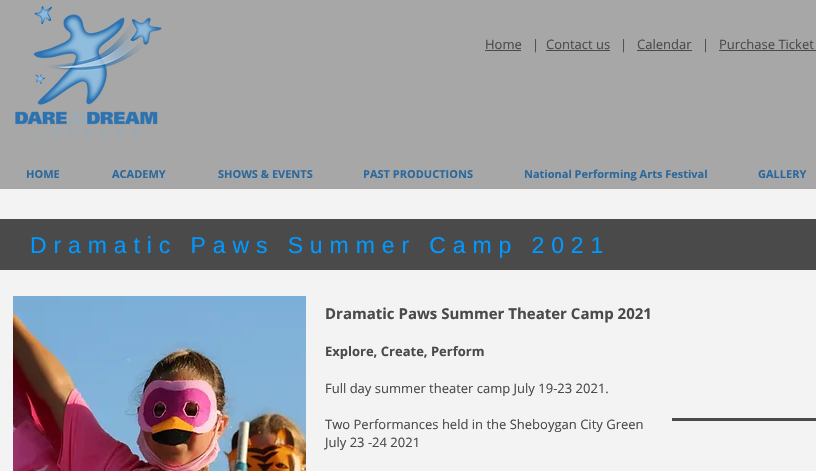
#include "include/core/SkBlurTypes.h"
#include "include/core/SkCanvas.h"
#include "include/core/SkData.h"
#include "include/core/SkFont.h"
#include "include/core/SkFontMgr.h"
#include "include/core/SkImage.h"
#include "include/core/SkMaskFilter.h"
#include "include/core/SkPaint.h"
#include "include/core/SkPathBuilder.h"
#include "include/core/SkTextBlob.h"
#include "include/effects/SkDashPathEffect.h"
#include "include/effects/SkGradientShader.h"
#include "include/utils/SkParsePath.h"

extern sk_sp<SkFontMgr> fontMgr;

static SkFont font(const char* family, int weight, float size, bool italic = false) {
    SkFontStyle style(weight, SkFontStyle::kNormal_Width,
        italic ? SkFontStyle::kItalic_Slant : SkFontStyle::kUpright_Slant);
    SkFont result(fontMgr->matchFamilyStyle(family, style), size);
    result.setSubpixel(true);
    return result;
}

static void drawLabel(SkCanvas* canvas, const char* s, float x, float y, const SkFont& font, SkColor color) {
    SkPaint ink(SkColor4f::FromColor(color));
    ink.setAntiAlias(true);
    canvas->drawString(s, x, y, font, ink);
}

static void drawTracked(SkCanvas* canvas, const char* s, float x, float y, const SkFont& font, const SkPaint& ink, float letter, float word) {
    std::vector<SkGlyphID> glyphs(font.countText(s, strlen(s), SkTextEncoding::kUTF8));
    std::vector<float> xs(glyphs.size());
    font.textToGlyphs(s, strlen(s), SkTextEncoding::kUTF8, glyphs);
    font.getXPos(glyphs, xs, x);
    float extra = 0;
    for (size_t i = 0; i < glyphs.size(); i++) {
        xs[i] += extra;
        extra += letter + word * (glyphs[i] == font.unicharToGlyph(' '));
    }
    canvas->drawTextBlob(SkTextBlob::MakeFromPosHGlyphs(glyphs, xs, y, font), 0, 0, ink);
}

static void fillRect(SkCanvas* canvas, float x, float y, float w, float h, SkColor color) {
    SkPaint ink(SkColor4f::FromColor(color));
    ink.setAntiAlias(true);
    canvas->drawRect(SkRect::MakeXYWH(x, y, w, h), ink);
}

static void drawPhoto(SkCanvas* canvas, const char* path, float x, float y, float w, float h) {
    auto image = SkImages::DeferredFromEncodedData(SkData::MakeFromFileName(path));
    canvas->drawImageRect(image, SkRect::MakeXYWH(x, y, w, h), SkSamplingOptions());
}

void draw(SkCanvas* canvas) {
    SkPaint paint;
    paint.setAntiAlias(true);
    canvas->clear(0xFFA7A7A7);
    drawPhoto(canvas, "assets/img1.png", 15, 5, 147, 131);
    SkFont font1 = font("Open Sans", 400, 13);
    drawLabel(canvas, "Home", 485, 49, font1, 0xFF4A4A4A);
    fillRect(canvas, 485, 50, 36, 1, 0xFF4A4A4A);
    drawLabel(canvas, "|", 532, 49, font1, 0xFF4A4A4A);
    drawLabel(canvas, "Contact us", 546, 49, font1, 0xFF4A4A4A);
    fillRect(canvas, 546, 50, 64, 1, 0xFF4A4A4A);
    drawLabel(canvas, "|", 620, 49, font1, 0xFF4A4A4A);
    drawLabel(canvas, "Calendar", 637, 49, font1, 0xFF4A4A4A);
    fillRect(canvas, 637, 50, 55, 1, 0xFF4A4A4A);
    drawLabel(canvas, "|", 702, 49, font1, 0xFF4A4A4A);
    drawLabel(canvas, "Purchase Ticket", 719, 49, font1, 0xFF4A4A4A);
    fillRect(canvas, 719, 50, 97, 1, 0xFF4A4A4A);
    SkFont font2 = font("Open Sans", 700, 11);
    drawLabel(canvas, "HOME", 26, 178, font2, 0xFF2B689C);
    drawLabel(canvas, "ACADEMY", 112, 178, font2, 0xFF2B689C);
    drawLabel(canvas, "SHOWS & EVENTS", 218, 178, font2, 0xFF2B689C);
    drawLabel(canvas, "PAST PRODUCTIONS", 363, 178, font2, 0xFF2B689C);
    drawLabel(canvas, "National Performing Arts Festival", 524, 178, font2, 0xFF2B689C);
    drawLabel(canvas, "GALLERY", 758, 178, font2, 0xFF2B689C);
    fillRect(canvas, 0, 189, 816, 282, 0xFFF3F3F3);
    fillRect(canvas, 0, 219, 816, 51, 0xFF4A4A4A);
    SkFont font3 = font("Liberation Sans", 400, 23);
    paint.setColor(0xFF0099FF);
    drawTracked(canvas, "Dramatic Paws Summer Camp 2021", 30, 253, font3, paint, 6.9f, 0);
    drawPhoto(canvas, "assets/img2.png", 13, 296, 293, 175);
    SkFont font4 = font("Open Sans", 700, 15);
    drawLabel(canvas, "Dramatic Paws Summer Theater Camp 2021", 325, 319, font4, 0xFF4A4A4A);
    SkFont font5 = font("Open Sans", 700, 13);
    drawLabel(canvas, "Explore, Create, Perform", 325, 356, font5, 0xFF4A4A4A);
    drawLabel(canvas, "Full day summer theater camp July 19-23 2021.", 325, 393, font1, 0xFF4A4A4A);
    drawLabel(canvas, "Two Performances held in the Sheboygan City Green", 325, 429, font1, 0xFF4A4A4A);
    drawLabel(canvas, "July 23 -24 2021", 325, 447, font1, 0xFF4A4A4A);
    fillRect(canvas, 672, 418, 144, 3, 0xFF4A4A4A);
}
